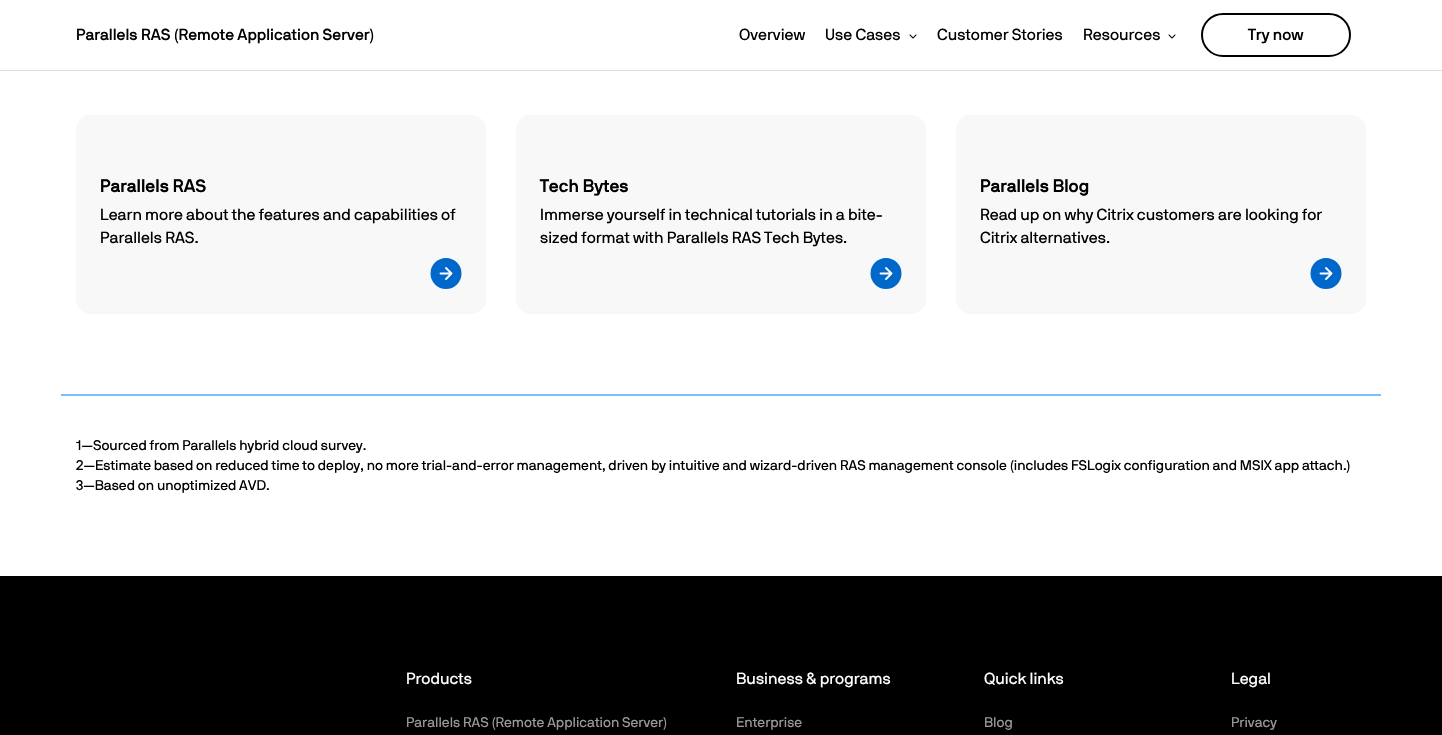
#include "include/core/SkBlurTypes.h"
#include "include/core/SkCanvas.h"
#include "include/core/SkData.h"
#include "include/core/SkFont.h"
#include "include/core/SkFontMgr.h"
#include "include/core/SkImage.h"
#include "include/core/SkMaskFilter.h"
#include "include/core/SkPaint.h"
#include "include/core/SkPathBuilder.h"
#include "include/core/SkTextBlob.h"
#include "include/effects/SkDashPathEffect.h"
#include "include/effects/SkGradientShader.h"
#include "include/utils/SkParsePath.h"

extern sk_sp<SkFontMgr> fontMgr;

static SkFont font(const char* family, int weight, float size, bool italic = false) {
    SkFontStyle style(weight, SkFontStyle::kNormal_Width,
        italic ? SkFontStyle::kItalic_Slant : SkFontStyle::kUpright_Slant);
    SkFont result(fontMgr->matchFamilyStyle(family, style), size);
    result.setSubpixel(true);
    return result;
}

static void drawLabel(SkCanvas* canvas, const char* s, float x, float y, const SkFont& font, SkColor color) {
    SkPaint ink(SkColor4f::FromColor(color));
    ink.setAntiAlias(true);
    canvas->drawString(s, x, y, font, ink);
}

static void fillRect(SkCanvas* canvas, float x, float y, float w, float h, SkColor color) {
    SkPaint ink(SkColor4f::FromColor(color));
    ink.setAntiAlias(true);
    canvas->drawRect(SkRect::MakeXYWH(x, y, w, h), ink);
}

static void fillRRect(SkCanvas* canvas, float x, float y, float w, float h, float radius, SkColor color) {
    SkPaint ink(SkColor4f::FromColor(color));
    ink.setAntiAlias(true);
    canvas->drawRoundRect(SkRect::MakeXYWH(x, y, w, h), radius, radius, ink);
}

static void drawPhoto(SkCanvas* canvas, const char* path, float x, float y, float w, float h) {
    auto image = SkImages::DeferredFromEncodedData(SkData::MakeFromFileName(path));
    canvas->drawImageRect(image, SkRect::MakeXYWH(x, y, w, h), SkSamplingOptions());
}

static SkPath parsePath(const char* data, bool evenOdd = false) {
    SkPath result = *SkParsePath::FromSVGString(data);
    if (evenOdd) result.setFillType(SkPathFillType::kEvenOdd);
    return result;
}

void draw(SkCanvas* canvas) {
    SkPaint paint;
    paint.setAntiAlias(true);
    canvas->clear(0xFFFFFFFF);
    fillRect(canvas, 0, 70, 1442, 1, 0xFFDEDEDE);
    SkFont font1 = font("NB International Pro", 500, 16);
    drawLabel(canvas, "Parallels RAS (Remote Application Server)", 76, 40, font1, 0xFF000000);
    SkFont font2 = font("NB International Pro", 400, 16);
    drawLabel(canvas, "Overview", 739, 40, font2, 0xFF000000);
    drawLabel(canvas, "Use Cases", 825, 40, font2, 0xFF000000);
    drawPhoto(canvas, "assets/img1.png", 909, 34, 8, 5);
    drawLabel(canvas, "Customer Stories", 937, 40, font2, 0xFF000000);
    drawLabel(canvas, "Resources", 1083, 40, font2, 0xFF000000);
    drawPhoto(canvas, "assets/img1.png", 1168, 34, 8, 5);
    paint.setStroke(true);
    paint.setStrokeWidth(2);
    paint.setColor(0xFF000000);
    canvas->drawRoundRect(SkRect::MakeXYWH(1202, 14, 148, 42), 21, 21, paint);
    drawLabel(canvas, "Try now", 1248, 40, font1, 0xFF000000);
    fillRect(canvas, 61, 394, 1320, 2, 0xFF7CBDFF);
    fillRRect(canvas, 76, 115, 410, 199, 15, 0xFFF8F8F8);
    SkFont font3 = font("NB International Pro", 700, 18);
    drawLabel(canvas, "Parallels RAS", 100, 192, font3, 0xFF000000);
    drawLabel(canvas, "Learn more about the features and capabilities of", 100, 220, font2, 0xFF000000);
    drawLabel(canvas, "Parallels RAS.", 100, 243, font2, 0xFF000000);
    paint.setStroke(false);
    paint.setColor(0xFF0067CB);
    canvas->drawCircle(446, 273.5f, 15.5f, paint);
    paint.setStroke(true);
    paint.setStrokeWidth(1.9f);
    paint.setStrokeCap(SkPaint::kRound_Cap);
    paint.setStrokeJoin(SkPaint::kRound_Join);
    paint.setColor(0xFFFFFFFF);
    canvas->drawPath(parsePath("M440.5 273.5H451.5M451.5 273.5L446 268M451.5 273.5L446 279"), paint);
    fillRRect(canvas, 516, 115, 410, 199, 15, 0xFFF8F8F8);
    drawLabel(canvas, "Tech Bytes", 540, 192, font3, 0xFF000000);
    drawLabel(canvas, "Immerse yourself in technical tutorials in a bite-", 540, 220, font2, 0xFF000000);
    drawLabel(canvas, "sized format with Parallels RAS Tech Bytes.", 540, 243, font2, 0xFF000000);
    paint.setStroke(false);
    paint.setColor(0xFF0067CB);
    canvas->drawCircle(886, 273.5f, 15.5f, paint);
    paint.setStroke(true);
    paint.setColor(0xFFFFFFFF);
    canvas->drawPath(parsePath("M880.5 273.5H891.5M891.5 273.5L886 268M891.5 273.5L886 279"), paint);
    fillRRect(canvas, 956, 115, 410, 199, 15, 0xFFF8F8F8);
    drawLabel(canvas, "Parallels Blog", 980, 192, font3, 0xFF000000);
    drawLabel(canvas, "Read up on why Citrix customers are looking for", 980, 220, font2, 0xFF000000);
    drawLabel(canvas, "Citrix alternatives.", 980, 243, font2, 0xFF000000);
    paint.setStroke(false);
    paint.setColor(0xFF0067CB);
    canvas->drawCircle(1326, 273.5f, 15.5f, paint);
    paint.setStroke(true);
    paint.setColor(0xFFFFFFFF);
    canvas->drawPath(parsePath("M1320.5 273.5H1331.5M1331.5 273.5L1326 268M1331.5 273.5L1326 279"), paint);
    SkFont font4 = font("NB International Pro", 400, 14);
    drawLabel(canvas, "1—Sourced from Parallels hybrid cloud survey.", 76, 450, font4, 0xFF000000);
    drawLabel(canvas, "2—Estimate based on reduced time to deploy, no more trial-and-error management, driven by intuitive and wizard-driven RAS management console (includes FSLogix configuration and MSIX app attach.)", 76, 470, font4, 0xFF000000);
    drawLabel(canvas, "3—Based on unoptimized AVD.", 76, 490, font4, 0xFF000000);
    fillRect(canvas, 0, 576, 1442, 159, 0xFF000000);
    drawLabel(canvas, "Products", 406, 684, font2, 0xFFFFFFFF);
    drawLabel(canvas, "Parallels RAS (Remote Application Server)", 406, 727, font4, 0xFF999999);
    drawLabel(canvas, "Business & programs", 736, 684, font2, 0xFFFFFFFF);
    drawLabel(canvas, "Enterprise", 736, 727, font4, 0xFF999999);
    drawLabel(canvas, "Quick links", 984, 684, font2, 0xFFFFFFFF);
    drawLabel(canvas, "Blog", 984, 727, font4, 0xFF999999);
    drawLabel(canvas, "Legal", 1231, 684, font2, 0xFFFFFFFF);
    drawLabel(canvas, "Privacy", 1231, 727, font4, 0xFF999999);
}
